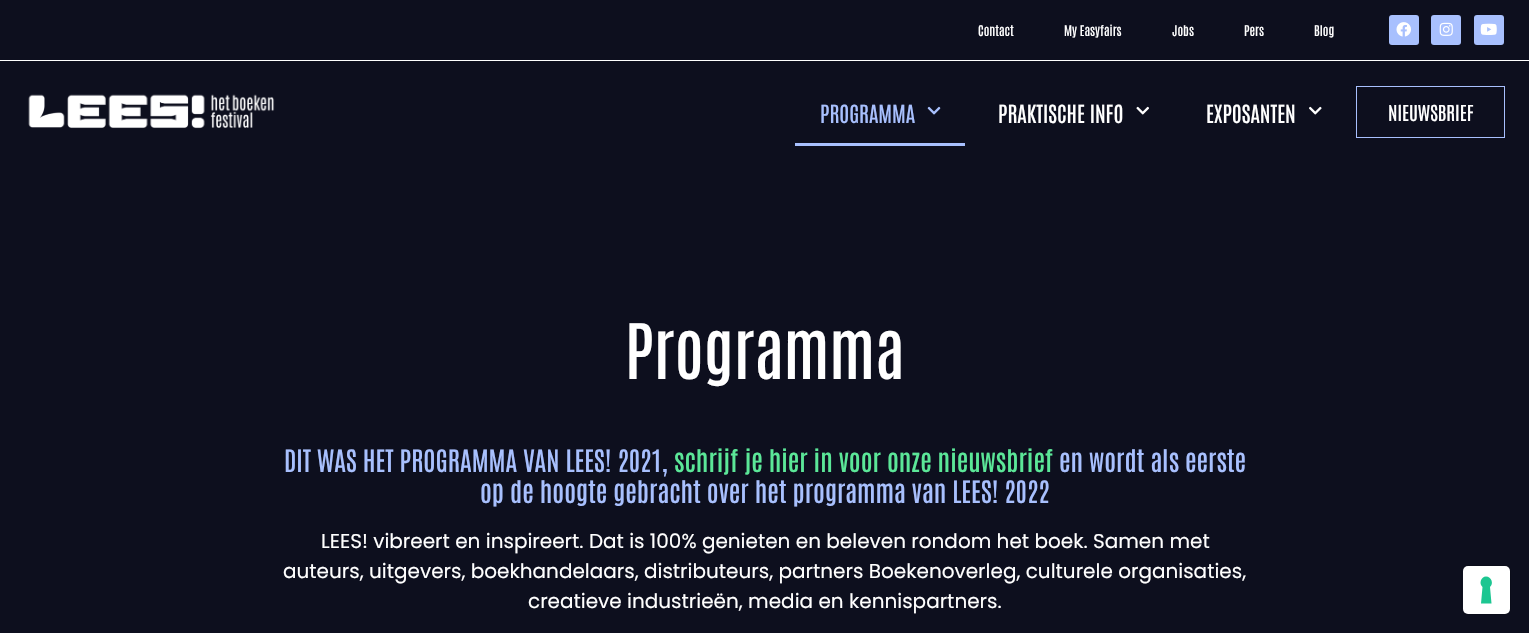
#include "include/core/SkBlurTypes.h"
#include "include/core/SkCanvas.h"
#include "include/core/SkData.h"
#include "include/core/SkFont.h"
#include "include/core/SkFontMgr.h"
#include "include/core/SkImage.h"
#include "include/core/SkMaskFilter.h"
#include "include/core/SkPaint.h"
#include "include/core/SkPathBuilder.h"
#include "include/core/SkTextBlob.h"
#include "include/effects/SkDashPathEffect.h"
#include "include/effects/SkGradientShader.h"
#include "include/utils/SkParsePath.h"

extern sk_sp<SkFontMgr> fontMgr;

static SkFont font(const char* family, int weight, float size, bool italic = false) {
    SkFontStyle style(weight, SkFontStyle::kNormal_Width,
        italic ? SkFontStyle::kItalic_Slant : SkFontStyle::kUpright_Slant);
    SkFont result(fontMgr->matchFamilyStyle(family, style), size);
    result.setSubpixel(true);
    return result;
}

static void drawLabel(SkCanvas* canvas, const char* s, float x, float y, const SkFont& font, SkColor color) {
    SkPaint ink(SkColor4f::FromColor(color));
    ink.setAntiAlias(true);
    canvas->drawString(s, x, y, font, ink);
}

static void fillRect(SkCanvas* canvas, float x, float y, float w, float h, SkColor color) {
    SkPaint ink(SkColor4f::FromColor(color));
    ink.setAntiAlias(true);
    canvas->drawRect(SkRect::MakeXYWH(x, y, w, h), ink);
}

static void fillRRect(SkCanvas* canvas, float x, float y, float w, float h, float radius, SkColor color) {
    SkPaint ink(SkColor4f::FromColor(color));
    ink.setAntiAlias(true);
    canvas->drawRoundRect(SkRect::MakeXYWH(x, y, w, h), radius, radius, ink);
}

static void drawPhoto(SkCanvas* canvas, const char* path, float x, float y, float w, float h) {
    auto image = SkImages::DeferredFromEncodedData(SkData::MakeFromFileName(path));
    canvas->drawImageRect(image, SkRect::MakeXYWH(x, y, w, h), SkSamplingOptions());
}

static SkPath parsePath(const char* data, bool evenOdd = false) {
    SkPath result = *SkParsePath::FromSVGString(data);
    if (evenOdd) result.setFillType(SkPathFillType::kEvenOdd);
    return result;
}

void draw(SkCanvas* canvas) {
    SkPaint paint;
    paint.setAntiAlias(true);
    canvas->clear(0xFF0D0F1E);
    fillRect(canvas, 0, 60, 1529, 1, 0xFFFFFFFF);
    SkFont font1 = font("Antonio", 500, 12.5f);
    drawLabel(canvas, "Contact", 978, 36, font1, 0xFFFFFFFF);
    drawLabel(canvas, "My Easyfairs", 1064, 36, font1, 0xFFFFFFFF);
    drawLabel(canvas, "Jobs", 1172, 36, font1, 0xFFFFFFFF);
    drawLabel(canvas, "Pers", 1244, 36, font1, 0xFFFFFFFF);
    drawLabel(canvas, "Blog", 1314, 36, font1, 0xFFFFFFFF);
    fillRRect(canvas, 1389, 15, 30, 30, 3, 0xFFA8C0FE);
    drawPhoto(canvas, "assets/img1.png", 1396, 22, 15, 15);
    fillRRect(canvas, 1431, 15, 30, 30, 3, 0xFFA8C0FE);
    drawPhoto(canvas, "assets/img2.png", 1439, 22, 14, 14);
    fillRRect(canvas, 1474, 15, 30, 30, 3, 0xFFA8C0FE);
    drawPhoto(canvas, "assets/img3.png", 1480, 23, 17, 12);
    drawPhoto(canvas, "assets/img4.png", 28, 94, 247, 35);
    SkFont font2 = font("Antonio", 500, 21.25f);
    drawLabel(canvas, "PROGRAMMA", 820, 123, font2, 0xFFA8C0FE);
    drawPhoto(canvas, "assets/img5.png", 927, 106, 14, 9);
    fillRect(canvas, 795, 143, 170, 3, 0xFFA8C0FE);
    drawLabel(canvas, "PRAKTISCHE INFO", 998, 123, font2, 0xFFFFFFFF);
    drawPhoto(canvas, "assets/img6.png", 1136, 106, 13, 9);
    drawLabel(canvas, "EXPOSANTEN", 1206, 123, font2, 0xFFFFFFFF);
    drawPhoto(canvas, "assets/img7.png", 1309, 106, 13, 9);
    paint.setStroke(true);
    paint.setStrokeWidth(1);
    paint.setColor(0xFFA8C0FE);
    canvas->drawRect(SkRect::MakeXYWH(1356.5f, 86.5f, 148, 51), paint);
    SkFont font3 = font("Antonio", 500, 18.75f);
    drawLabel(canvas, "NIEUWSBRIEF", 1388, 121, font3, 0xFFFFFFFF);
    SkFont font4 = font("Antonio", 500, 65);
    drawLabel(canvas, "Programma", 625, 379, font4, 0xFFFFFFFF);
    SkFont font5 = font("Antonio", 500, 26.25f);
    drawLabel(canvas, "DIT WAS HET PROGRAMMA VAN LEES! 2021,", 284, 472, font5, 0xFFA8C0FE);
    drawLabel(canvas, "schrijf je hier in voor onze nieuwsbrief", 674, 472, font5, 0xFF5BE798);
    drawLabel(canvas, "en wordt als eerste", 1059, 472, font5, 0xFFA8C0FE);
    drawLabel(canvas, "op de hoogte gebracht over het programma van LEES! 2022", 480, 503, font5, 0xFFA8C0FE);
    SkFont font6 = font("Poppins", 400, 20);
    drawLabel(canvas, "LEES! vibreert en inspireert. Dat is 100% genieten en beleven rondom het boek. Samen met", 321, 548, font6, 0xFFFFFFFF);
    drawLabel(canvas, "auteurs, uitgevers, boekhandelaars, distributeurs, partners Boekenoverleg, culturele organisaties,", 283, 578, font6, 0xFFFFFFFF);
    drawLabel(canvas, "creatieve industrieën, media en kennispartners.", 528, 608, font6, 0xFFFFFFFF);
    paint.setColor(0xFF0B0D1A);
    canvas->drawRoundRect(SkRect::MakeXYWH(1461.5f, 565.5f, 49, 49), 5.5f, 5.5f, paint);
    fillRRect(canvas, 1463, 566, 47, 48, 5, 0xFFFFFFFF);
    paint.setStroke(false);
    paint.setColor(0xFF1CC691);
    canvas->drawPath(parsePath("M1486 576.5C1491.5 576.5 1494 583.5 1490 587L1491.5 603.5H1481L1482.5 587C1478.5 583.5 1481 576.5 1486 576.5Z", true), paint);
}
